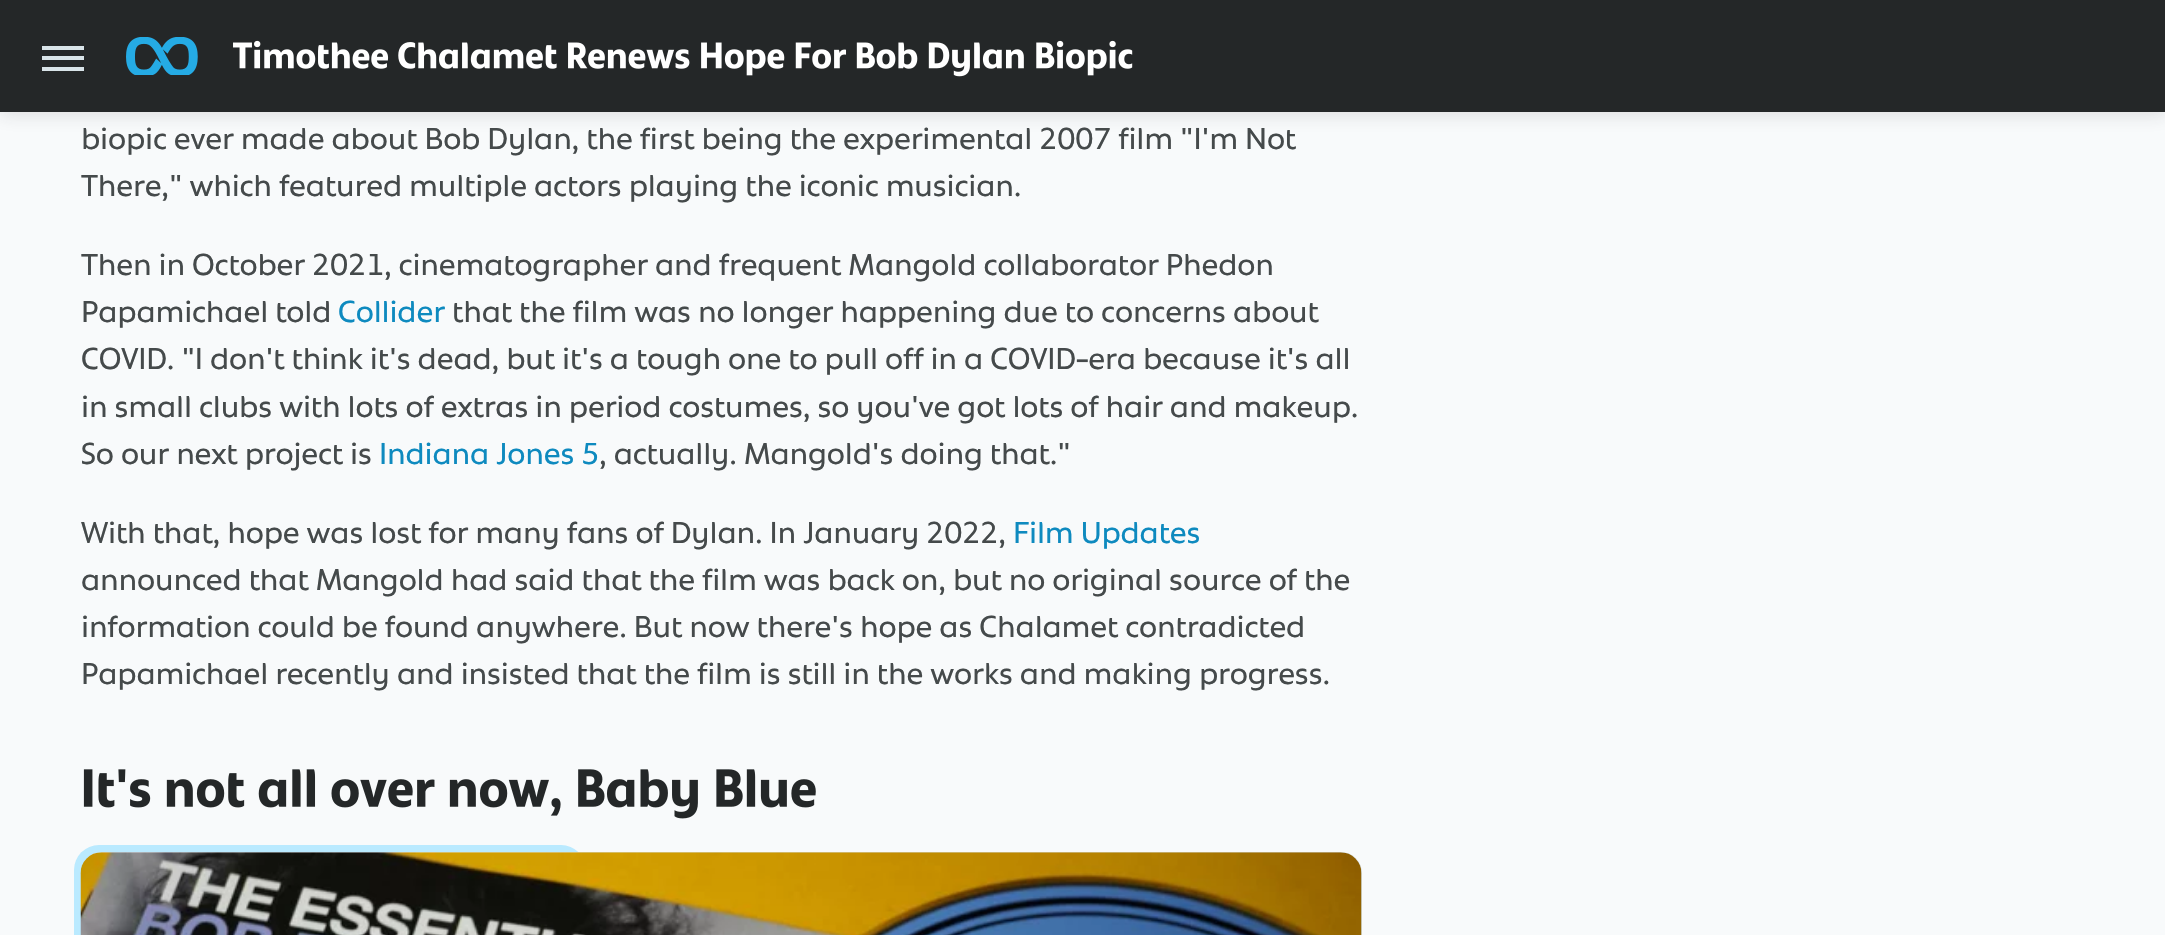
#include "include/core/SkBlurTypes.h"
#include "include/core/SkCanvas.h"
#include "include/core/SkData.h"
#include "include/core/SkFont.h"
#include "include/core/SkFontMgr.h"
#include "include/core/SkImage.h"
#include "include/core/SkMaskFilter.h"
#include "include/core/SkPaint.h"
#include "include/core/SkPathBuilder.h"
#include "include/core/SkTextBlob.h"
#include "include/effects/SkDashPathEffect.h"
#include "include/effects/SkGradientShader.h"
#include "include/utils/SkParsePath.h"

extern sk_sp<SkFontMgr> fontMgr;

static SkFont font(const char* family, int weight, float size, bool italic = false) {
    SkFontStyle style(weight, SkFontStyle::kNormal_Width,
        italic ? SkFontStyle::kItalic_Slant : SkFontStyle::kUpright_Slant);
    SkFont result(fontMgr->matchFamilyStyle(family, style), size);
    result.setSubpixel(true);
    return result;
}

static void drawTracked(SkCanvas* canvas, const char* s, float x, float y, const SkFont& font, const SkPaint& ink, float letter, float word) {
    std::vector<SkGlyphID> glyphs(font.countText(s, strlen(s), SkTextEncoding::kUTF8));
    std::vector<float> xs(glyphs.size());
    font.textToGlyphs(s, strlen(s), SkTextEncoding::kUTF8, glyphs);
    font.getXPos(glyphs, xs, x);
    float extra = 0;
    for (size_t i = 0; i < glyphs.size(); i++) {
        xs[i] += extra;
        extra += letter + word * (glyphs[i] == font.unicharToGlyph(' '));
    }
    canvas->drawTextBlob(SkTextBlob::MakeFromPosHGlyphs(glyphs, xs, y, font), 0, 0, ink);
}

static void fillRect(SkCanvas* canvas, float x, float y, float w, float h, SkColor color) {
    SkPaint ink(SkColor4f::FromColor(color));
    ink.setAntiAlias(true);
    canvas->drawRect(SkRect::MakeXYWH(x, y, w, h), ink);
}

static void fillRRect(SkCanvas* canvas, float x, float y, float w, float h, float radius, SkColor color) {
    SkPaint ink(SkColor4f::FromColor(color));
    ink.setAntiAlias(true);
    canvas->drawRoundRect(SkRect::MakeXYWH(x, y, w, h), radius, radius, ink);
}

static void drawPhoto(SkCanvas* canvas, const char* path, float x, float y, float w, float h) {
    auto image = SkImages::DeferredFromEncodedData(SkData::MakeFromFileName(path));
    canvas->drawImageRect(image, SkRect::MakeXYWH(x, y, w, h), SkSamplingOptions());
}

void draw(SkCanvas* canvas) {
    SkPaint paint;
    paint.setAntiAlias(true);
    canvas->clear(0xFFF8FAFB);
    paint.setColor(0x26272B2E);
    paint.setMaskFilter(SkMaskFilter::MakeBlur(kNormal_SkBlurStyle, 9));
    canvas->drawRect(SkRect::MakeXYWH(0, 2, 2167, 112), paint);
    paint.setMaskFilter(nullptr);
    fillRect(canvas, 0, 0, 2165, 112, 0xFF242728);
    fillRect(canvas, 42, 46, 42, 4, 0xFFD9E4E9);
    fillRect(canvas, 42, 56, 42, 4, 0xFFD9E4E9);
    fillRect(canvas, 42, 67, 42, 4, 0xFFD9E4E9);
    drawPhoto(canvas, "assets/img1.png", 126, 37, 72, 38);
    drawPhoto(canvas, "assets/img2.png", 233, 40, 900, 37);
    SkFont font1 = font("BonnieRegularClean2", 400, 31.5f);
    paint.setColor(0xFF454A4B);
    drawTracked(canvas, "biopic ever made about Bob Dylan, the first being the experimental 2007 film \"I'm Not", 81, 149, font1, paint, -0.18f, 0);
    drawTracked(canvas, "There,\" which featured multiple actors playing the iconic musician.", 81, 196, font1, paint, -0.18f, 0);
    drawTracked(canvas, "Then in October 2021, cinematographer and frequent Mangold collaborator Phedon", 81, 275, font1, paint, -0.18f, 0);
    drawTracked(canvas, "Papamichael told", 81, 322, font1, paint, -0.18f, 0);
    paint.setColor(0xFF0E8ABF);
    drawTracked(canvas, "Collider", 338, 322, font1, paint, -0.18f, 0);
    paint.setColor(0xFF454A4B);
    drawTracked(canvas, "that the film was no longer happening due to concerns about", 452, 322, font1, paint, -0.18f, 0);
    drawTracked(canvas, "COVID. \"I don't think it's dead, but it's a tough one to pull off in a COVID-era because it's all", 81, 369, font1, paint, -0.18f, 0);
    drawTracked(canvas, "in small clubs with lots of extras in period costumes, so you've got lots of hair and makeup.", 81, 417, font1, paint, -0.18f, 0);
    drawTracked(canvas, "So our next project is", 81, 464, font1, paint, -0.18f, 0);
    paint.setColor(0xFF0E8ABF);
    drawTracked(canvas, "Indiana Jones 5", 379, 464, font1, paint, -0.18f, 0);
    paint.setColor(0xFF454A4B);
    drawTracked(canvas, ", actually. Mangold's doing that.\"", 599, 464, font1, paint, -0.18f, 0);
    drawTracked(canvas, "With that, hope was lost for many fans of Dylan. In January 2022,", 81, 543, font1, paint, -0.18f, 0);
    paint.setColor(0xFF0E8ABF);
    drawTracked(canvas, "Film Updates", 1013, 543, font1, paint, -0.18f, 0);
    paint.setColor(0xFF454A4B);
    drawTracked(canvas, "announced that Mangold had said that the film was back on, but no original source of the", 81, 590, font1, paint, -0.18f, 0);
    drawTracked(canvas, "information could be found anywhere. But now there's hope as Chalamet contradicted", 81, 637, font1, paint, -0.18f, 0);
    drawTracked(canvas, "Papamichael recently and insisted that the film is still in the works and making progress.", 81, 684, font1, paint, -0.18f, 0);
    drawPhoto(canvas, "assets/img3.png", 83, 769, 733, 50);
    fillRRect(canvas, 74, 845, 512, 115, 25, 0xFFBAEAFF);
    fillRRect(canvas, 81, 852, 1281, 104, 21, 0xFFD9E4E9);
    drawPhoto(canvas, "assets/img4.png", 80, 852, 1282, 83);
}
